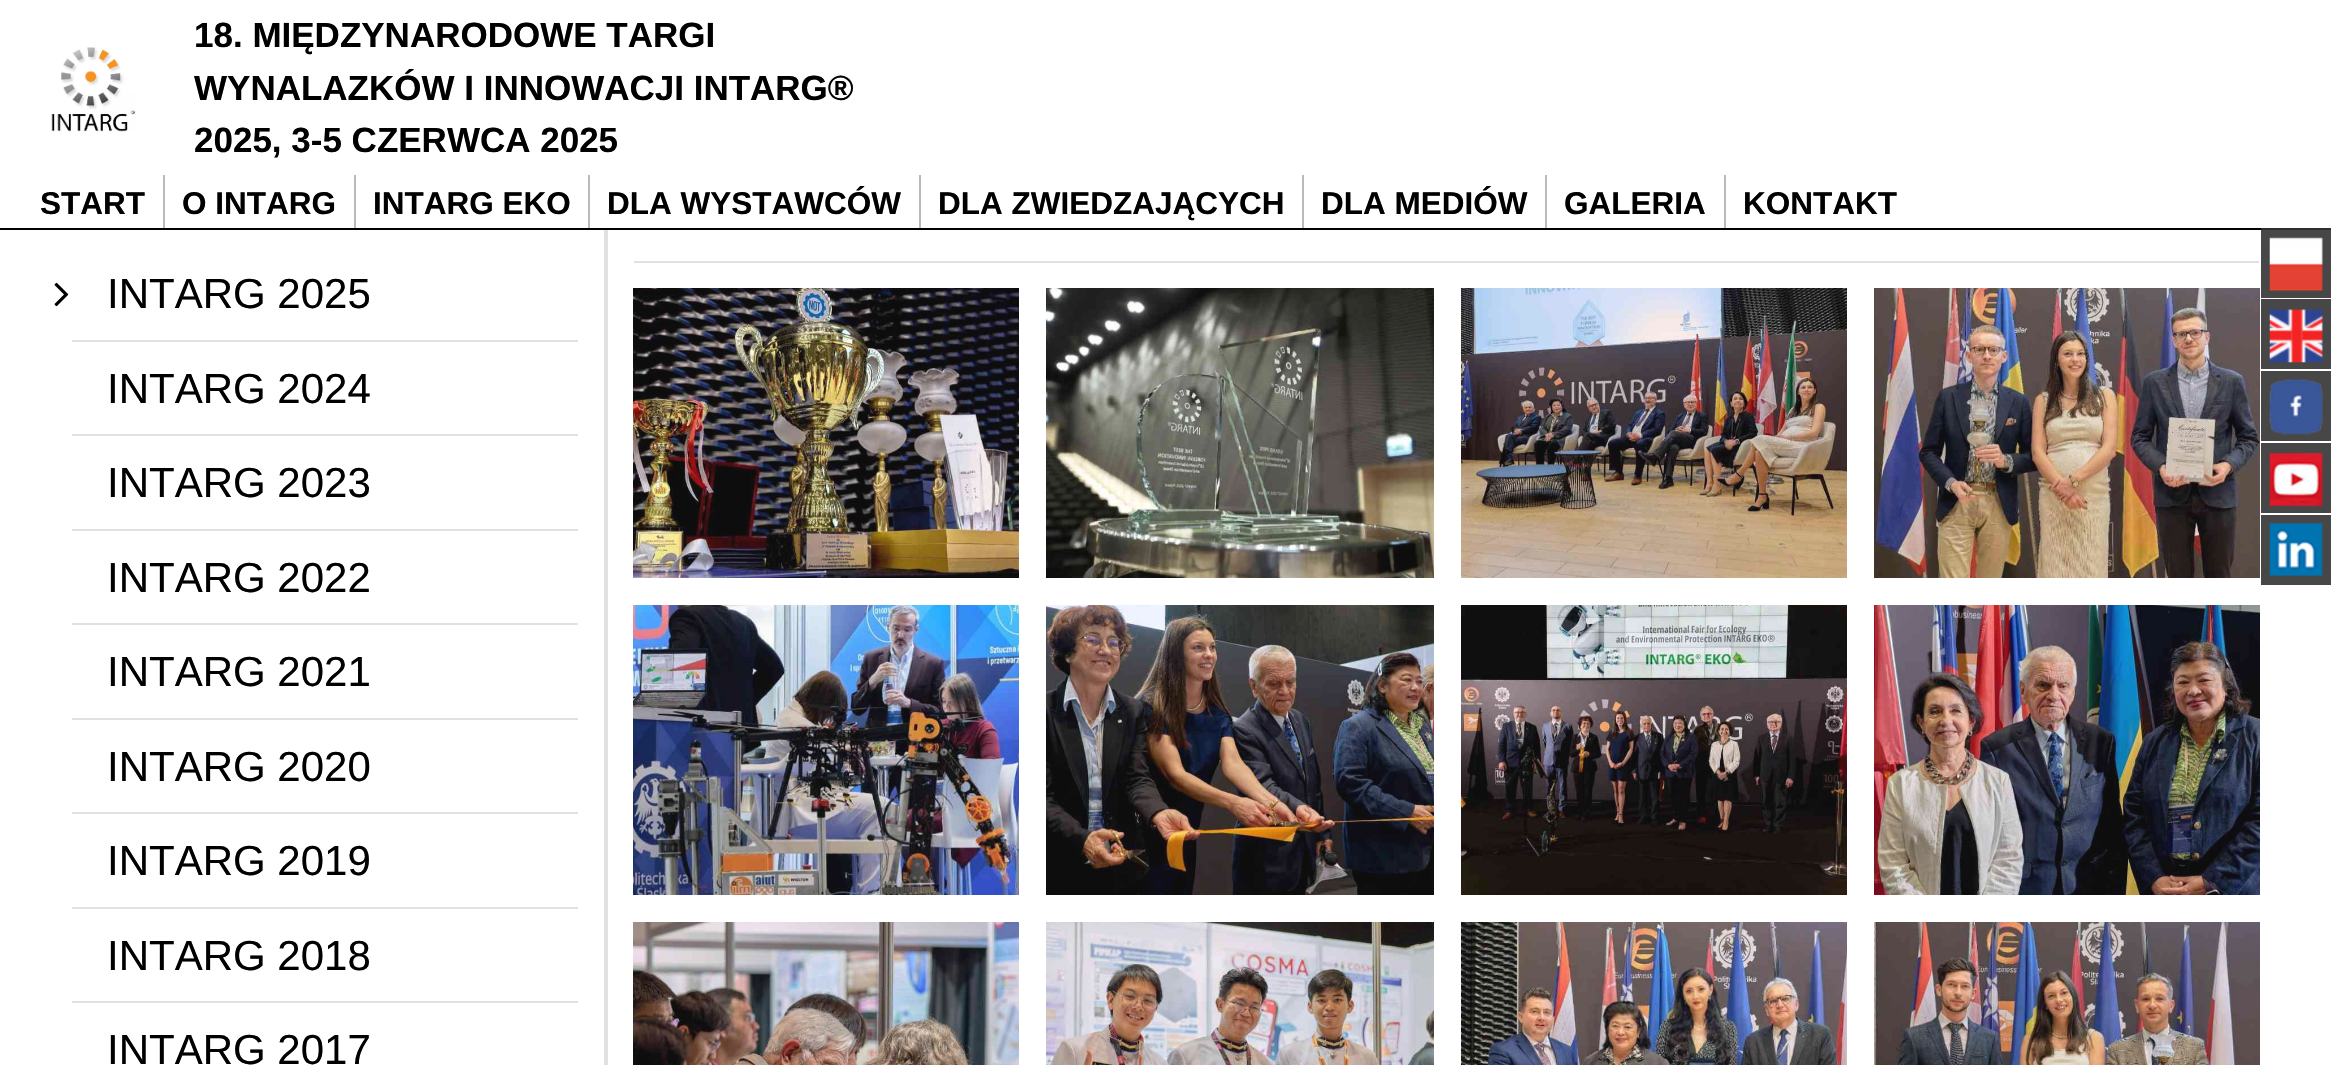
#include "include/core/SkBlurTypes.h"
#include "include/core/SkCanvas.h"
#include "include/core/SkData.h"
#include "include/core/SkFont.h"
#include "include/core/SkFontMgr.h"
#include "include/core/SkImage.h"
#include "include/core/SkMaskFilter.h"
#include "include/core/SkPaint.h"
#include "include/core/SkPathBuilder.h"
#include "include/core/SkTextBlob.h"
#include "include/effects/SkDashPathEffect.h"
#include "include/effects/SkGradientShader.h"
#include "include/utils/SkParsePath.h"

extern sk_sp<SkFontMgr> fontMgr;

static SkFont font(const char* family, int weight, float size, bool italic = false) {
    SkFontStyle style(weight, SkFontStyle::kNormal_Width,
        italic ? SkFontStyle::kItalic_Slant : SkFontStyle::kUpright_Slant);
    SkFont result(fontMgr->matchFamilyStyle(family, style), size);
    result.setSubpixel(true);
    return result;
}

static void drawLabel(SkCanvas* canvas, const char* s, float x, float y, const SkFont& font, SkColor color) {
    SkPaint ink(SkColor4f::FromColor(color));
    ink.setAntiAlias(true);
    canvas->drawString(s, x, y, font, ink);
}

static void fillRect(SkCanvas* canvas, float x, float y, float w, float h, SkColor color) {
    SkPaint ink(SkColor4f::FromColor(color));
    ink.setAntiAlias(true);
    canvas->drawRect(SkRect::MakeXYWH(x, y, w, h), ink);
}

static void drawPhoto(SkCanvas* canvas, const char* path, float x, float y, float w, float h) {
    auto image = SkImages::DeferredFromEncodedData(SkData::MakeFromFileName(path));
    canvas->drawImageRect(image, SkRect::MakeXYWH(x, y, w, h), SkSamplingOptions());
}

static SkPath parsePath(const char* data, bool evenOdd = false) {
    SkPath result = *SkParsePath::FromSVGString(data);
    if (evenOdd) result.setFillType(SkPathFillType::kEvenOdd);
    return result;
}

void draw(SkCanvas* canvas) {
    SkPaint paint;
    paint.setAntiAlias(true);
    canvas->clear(0xFFFFFFFF);
    fillRect(canvas, 2261, 230, 70, 68, 0xFF474747);
    fillRect(canvas, 0, 228, 2261, 2, 0xFF000000);
    fillRect(canvas, 2261, 228, 70, 2, 0xFF2E2E2E);
    drawPhoto(canvas, "assets/img1.png", 51, 47, 85, 85);
    SkFont font1 = font("Liberation Sans", 700, 35);
    drawLabel(canvas, "18. MIĘDZYNARODOWE TARGI", 194, 47, font1, 0xFF000000);
    drawLabel(canvas, "WYNALAZKÓW I INNOWACJI INTARG®", 194, 100, font1, 0xFF000000);
    drawLabel(canvas, "2025, 3-5 CZERWCA 2025", 194, 152, font1, 0xFF000000);
    SkFont font2 = font("Liberation Sans", 700, 31.5f);
    drawLabel(canvas, "START", 40, 214, font2, 0xFF000000);
    fillRect(canvas, 163, 175, 2, 53, 0xFFBABABA);
    drawLabel(canvas, "O INTARG", 182, 214, font2, 0xFF000000);
    fillRect(canvas, 354, 175, 2, 53, 0xFFBABABA);
    drawLabel(canvas, "INTARG EKO", 373, 214, font2, 0xFF000000);
    fillRect(canvas, 588, 175, 2, 53, 0xFFBABABA);
    drawLabel(canvas, "DLA WYSTAWCÓW", 607, 214, font2, 0xFF000000);
    fillRect(canvas, 919, 175, 2, 53, 0xFFBABABA);
    drawLabel(canvas, "DLA ZWIEDZAJĄCYCH", 938, 214, font2, 0xFF000000);
    fillRect(canvas, 1302, 175, 2, 53, 0xFFBABABA);
    drawLabel(canvas, "DLA MEDIÓW", 1321, 214, font2, 0xFF000000);
    fillRect(canvas, 1545, 175, 2, 53, 0xFFBABABA);
    drawLabel(canvas, "GALERIA", 1564, 214, font2, 0xFF000000);
    fillRect(canvas, 1724, 175, 2, 53, 0xFFBABABA);
    drawLabel(canvas, "KONTAKT", 1743, 214, font2, 0xFF000000);
    fillRect(canvas, 604, 230, 4, 835, 0xFFE1E1E1);
    fillRect(canvas, 72, 340, 506, 2, 0xFFE1E1E1);
    drawPhoto(canvas, "assets/img2.png", 54, 282, 15, 25);
    SkFont font3 = font("Liberation Sans", 400, 42);
    drawLabel(canvas, "INTARG 2025", 107, 308, font3, 0xFF000000);
    fillRect(canvas, 72, 434, 506, 2, 0xFFE1E1E1);
    drawLabel(canvas, "INTARG 2024", 107, 403, font3, 0xFF000000);
    fillRect(canvas, 72, 529, 506, 2, 0xFFE1E1E1);
    drawLabel(canvas, "INTARG 2023", 107, 497, font3, 0xFF000000);
    fillRect(canvas, 72, 623, 506, 2, 0xFFE1E1E1);
    drawLabel(canvas, "INTARG 2022", 107, 592, font3, 0xFF000000);
    fillRect(canvas, 72, 718, 506, 2, 0xFFE1E1E1);
    drawLabel(canvas, "INTARG 2021", 107, 686, font3, 0xFF000000);
    fillRect(canvas, 72, 812, 506, 2, 0xFFE1E1E1);
    drawLabel(canvas, "INTARG 2020", 107, 781, font3, 0xFF000000);
    fillRect(canvas, 72, 907, 506, 2, 0xFFE1E1E1);
    drawLabel(canvas, "INTARG 2019", 107, 875, font3, 0xFF000000);
    fillRect(canvas, 72, 1001, 506, 2, 0xFFE1E1E1);
    drawLabel(canvas, "INTARG 2018", 107, 970, font3, 0xFF000000);
    drawLabel(canvas, "INTARG 2017", 107, 1064, font3, 0xFF000000);
    fillRect(canvas, 634, 261, 1625, 2, 0xFFE1E1E1);
    drawPhoto(canvas, "assets/img3.png", 633, 288, 386, 290);
    drawPhoto(canvas, "assets/img4.png", 1046, 288, 388, 290);
    drawPhoto(canvas, "assets/img5.png", 1461, 288, 386, 290);
    drawPhoto(canvas, "assets/img6.png", 1874, 288, 386, 290);
    drawPhoto(canvas, "assets/img7.png", 633, 605, 386, 290);
    drawPhoto(canvas, "assets/img8.png", 1046, 605, 388, 290);
    drawPhoto(canvas, "assets/img9.png", 1461, 605, 386, 290);
    drawPhoto(canvas, "assets/img10.png", 1874, 605, 386, 290);
    drawPhoto(canvas, "assets/img11.png", 633, 922, 386, 143);
    canvas->save();
    canvas->clipRect(SkRect::MakeXYWH(634, 922, 385, 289));
    paint.setColor(0xFFB2B7D3);
    canvas->drawPath(parsePath("M1150 447L1667 828L1279 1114L761 733Z"), paint);
    canvas->restore();
    drawPhoto(canvas, "assets/img12.png", 1046, 922, 388, 143);
    canvas->save();
    canvas->clipRect(SkRect::MakeXYWH(1047, 922, 386, 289));
    paint.setColor(0xFF8D8A89);
    canvas->drawPath(parsePath("M1563 447L2081 828L1693 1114L1175 733Z"), paint);
    canvas->restore();
    drawPhoto(canvas, "assets/img13.png", 1461, 922, 386, 143);
    canvas->save();
    canvas->clipRect(SkRect::MakeXYWH(1461, 922, 385, 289));
    paint.setColor(0xFFBAB4C0);
    canvas->drawPath(parsePath("M1976 447L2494 828L2106 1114L1588 733Z"), paint);
    canvas->restore();
    drawPhoto(canvas, "assets/img14.png", 1874, 922, 386, 143);
    drawPhoto(canvas, "assets/img15.png", 2269, 237, 54, 55);
    fillRect(canvas, 2261, 299, 70, 70, 0xFF474747);
    drawPhoto(canvas, "assets/img16.png", 2269, 309, 54, 54);
    fillRect(canvas, 2261, 371, 70, 70, 0xFF474747);
    drawPhoto(canvas, "assets/img17.png", 2269, 379, 54, 56);
    fillRect(canvas, 2261, 443, 70, 70, 0xFF474747);
    drawPhoto(canvas, "assets/img18.png", 2269, 453, 54, 54);
    fillRect(canvas, 2261, 515, 70, 70, 0xFF474747);
    drawPhoto(canvas, "assets/img19.png", 2269, 523, 54, 54);
}
